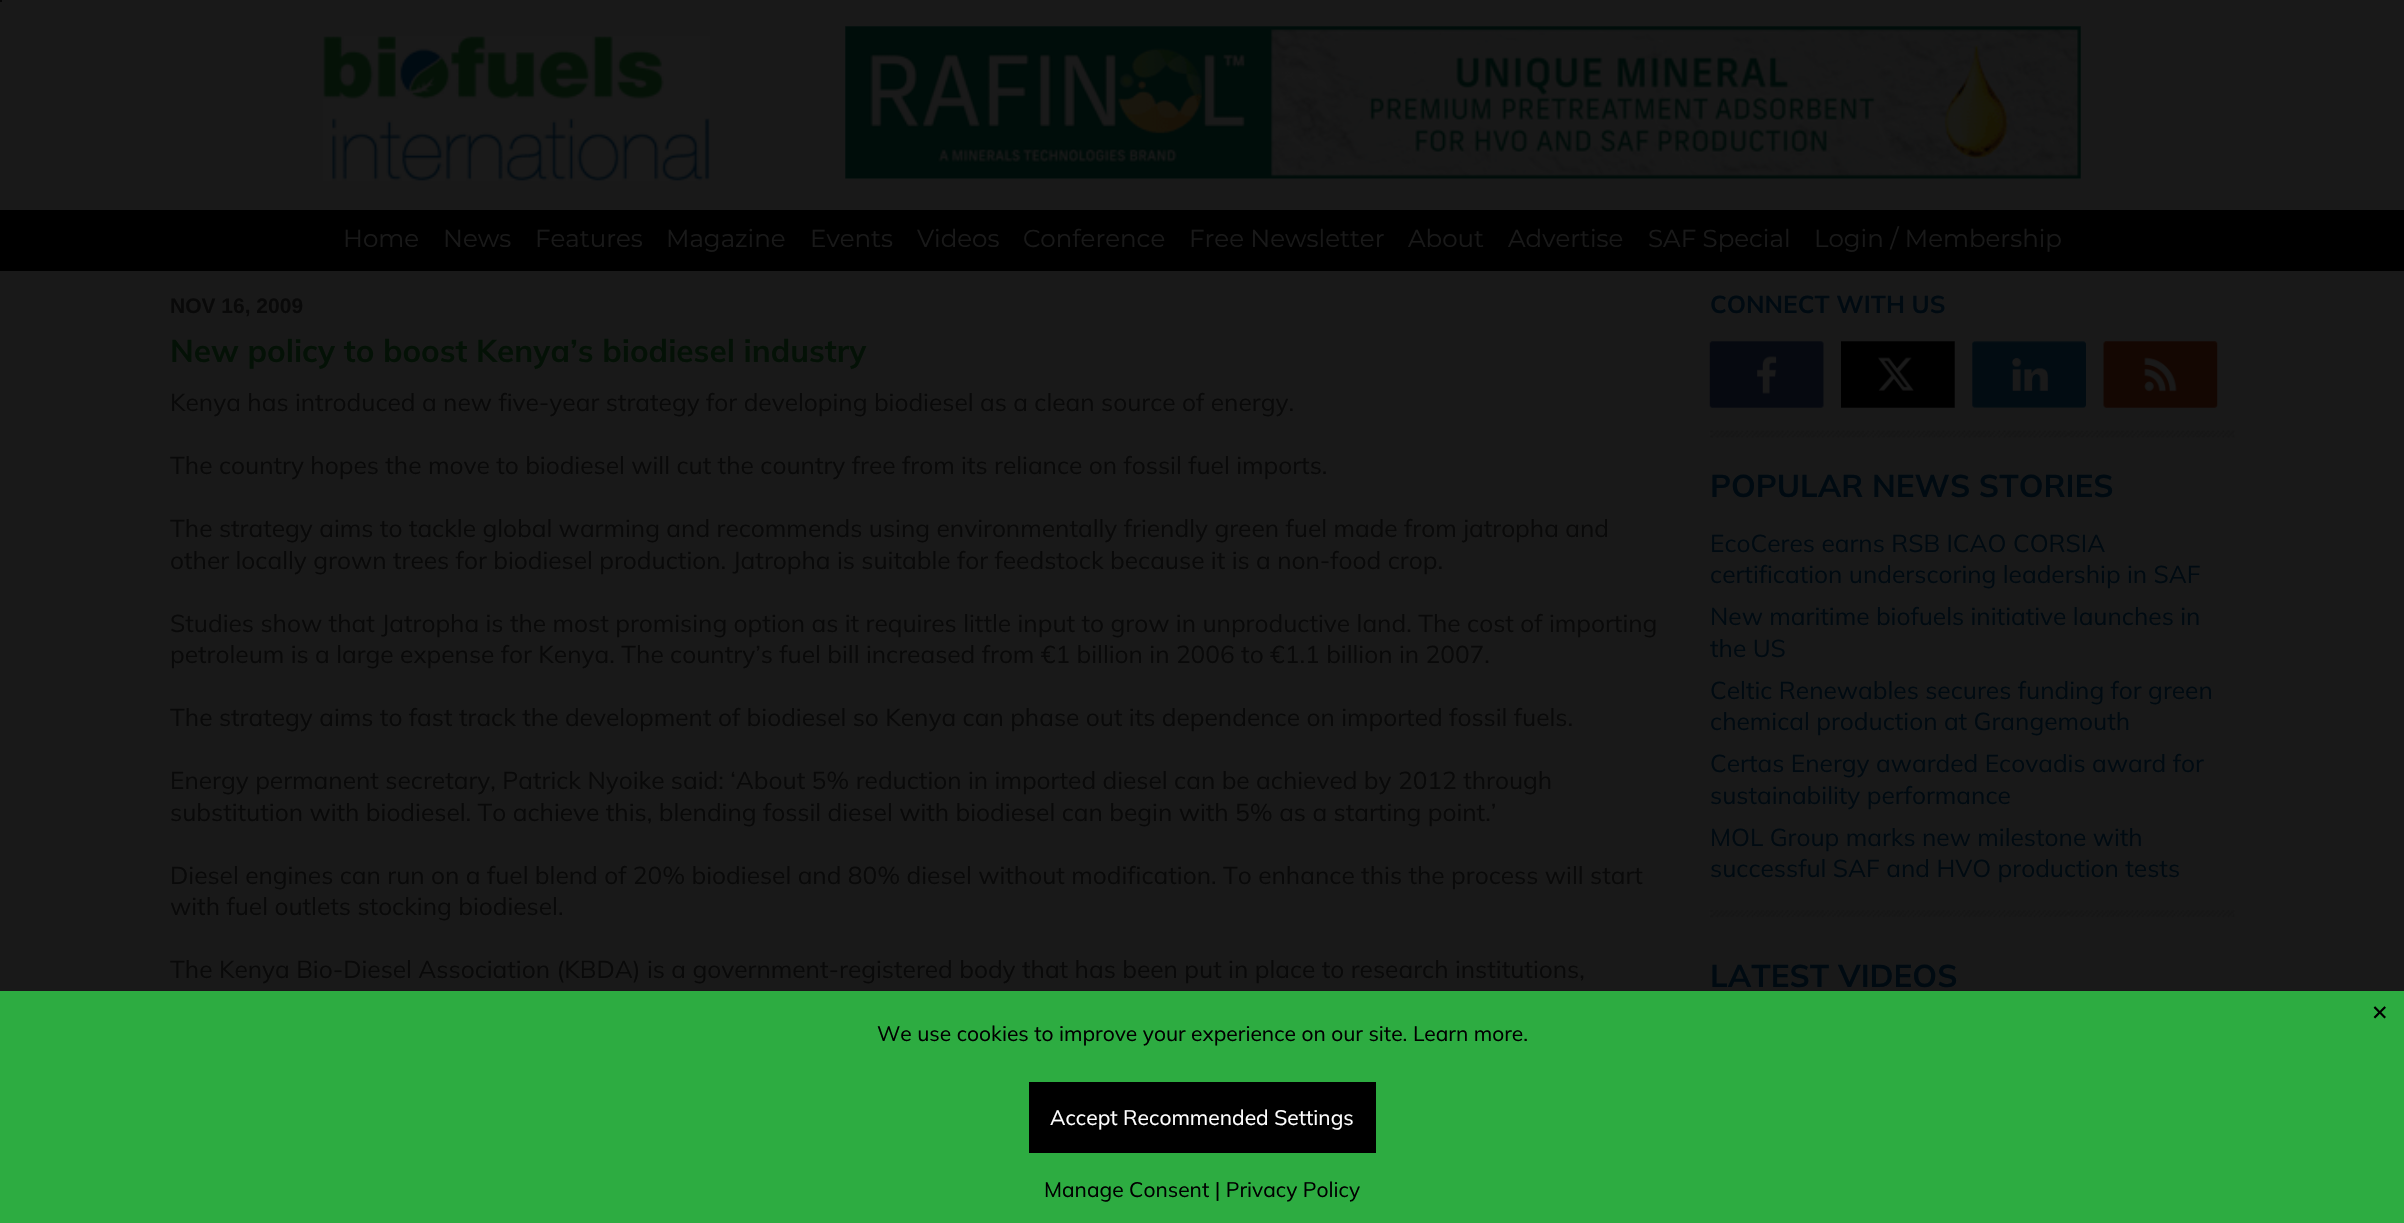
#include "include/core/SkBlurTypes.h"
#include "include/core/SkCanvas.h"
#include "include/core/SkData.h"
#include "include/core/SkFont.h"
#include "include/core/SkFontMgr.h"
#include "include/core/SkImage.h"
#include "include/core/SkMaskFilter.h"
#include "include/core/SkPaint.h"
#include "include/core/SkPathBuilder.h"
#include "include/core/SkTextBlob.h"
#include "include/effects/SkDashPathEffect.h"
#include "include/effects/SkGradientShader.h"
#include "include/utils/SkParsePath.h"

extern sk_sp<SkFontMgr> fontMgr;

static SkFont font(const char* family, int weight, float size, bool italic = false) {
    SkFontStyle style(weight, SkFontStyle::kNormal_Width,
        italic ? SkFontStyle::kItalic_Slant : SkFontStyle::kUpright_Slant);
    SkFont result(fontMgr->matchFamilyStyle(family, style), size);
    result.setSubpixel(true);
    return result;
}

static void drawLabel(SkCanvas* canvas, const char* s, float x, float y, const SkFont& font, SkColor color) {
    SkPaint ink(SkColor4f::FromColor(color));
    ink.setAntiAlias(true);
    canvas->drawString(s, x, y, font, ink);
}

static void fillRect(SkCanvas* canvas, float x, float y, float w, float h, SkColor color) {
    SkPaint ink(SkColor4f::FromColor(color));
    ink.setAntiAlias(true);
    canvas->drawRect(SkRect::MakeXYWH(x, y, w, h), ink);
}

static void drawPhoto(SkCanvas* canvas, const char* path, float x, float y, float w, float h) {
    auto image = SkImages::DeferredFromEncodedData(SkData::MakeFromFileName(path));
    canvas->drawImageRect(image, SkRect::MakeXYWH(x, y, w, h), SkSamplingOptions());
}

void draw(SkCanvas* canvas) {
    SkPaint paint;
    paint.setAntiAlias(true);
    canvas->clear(0xFF191919);
    fillRect(canvas, 0, 0, 2, 2, 0xFF060606);
    drawPhoto(canvas, "assets/img1.png", 323, 36, 387, 145);
    drawPhoto(canvas, "assets/img2.png", 845, 26, 1236, 153);
    fillRect(canvas, 0, 210, 2404, 61, 0xFF000000);
    SkFont font1 = font("Montserrat", 400, 24.5f);
    drawLabel(canvas, "Home", 343, 247, font1, 0xFF191919);
    drawLabel(canvas, "News", 443, 247, font1, 0xFF191919);
    drawLabel(canvas, "Features", 535, 247, font1, 0xFF191919);
    drawLabel(canvas, "Magazine", 666, 247, font1, 0xFF191919);
    drawLabel(canvas, "Events", 810, 247, font1, 0xFF191919);
    drawLabel(canvas, "Videos", 917, 247, font1, 0xFF191919);
    drawLabel(canvas, "Conference", 1023, 247, font1, 0xFF191919);
    drawLabel(canvas, "Free Newsletter", 1189, 247, font1, 0xFF191919);
    drawLabel(canvas, "About", 1408, 247, font1, 0xFF191919);
    drawLabel(canvas, "Advertise", 1508, 247, font1, 0xFF191919);
    drawLabel(canvas, "SAF Special", 1648, 247, font1, 0xFF191919);
    drawLabel(canvas, "Login / Membership", 1814, 247, font1, 0xFF191919);
    SkFont font2 = font("Liberation Sans", 700, 21);
    drawLabel(canvas, "NOV 16, 2009", 170, 313, font2, 0xFF090909);
    SkFont font3 = font("Mulish", 700, 31.5f);
    drawLabel(canvas, "New policy to boost Kenya’s biodiesel industry", 170, 362, font3, 0xFF041106);
    SkFont font4 = font("Mulish", 400, 24.5f);
    drawLabel(canvas, "Kenya has introduced a new five-year strategy for developing biodiesel as a clean source of energy.", 170, 411, font4, 0xFF090909);
    drawLabel(canvas, "The country hopes the move to biodiesel will cut the country free from its reliance on fossil fuel imports.", 170, 474, font4, 0xFF090909);
    drawLabel(canvas, "The strategy aims to tackle global warming and recommends using environmentally friendly green fuel made from jatropha and", 170, 537, font4, 0xFF090909);
    drawLabel(canvas, "other locally grown trees for biodiesel production. Jatropha is suitable for feedstock because it is a non-food crop.", 170, 569, font4, 0xFF090909);
    drawLabel(canvas, "Studies show that Jatropha is the most promising option as it requires little input to grow in unproductive land. The cost of importing", 170, 632, font4, 0xFF090909);
    drawLabel(canvas, "petroleum is a large expense for Kenya. The country’s fuel bill increased from €1 billion in 2006 to €1.1 billion in 2007.", 170, 663, font4, 0xFF090909);
    drawLabel(canvas, "The strategy aims to fast track the development of biodiesel so Kenya can phase out its dependence on imported fossil fuels.", 170, 726, font4, 0xFF090909);
    drawLabel(canvas, "Energy permanent secretary, Patrick Nyoike said: ‘About 5% reduction in imported diesel can be achieved by 2012 through", 170, 789, font4, 0xFF090909);
    drawLabel(canvas, "substitution with biodiesel. To achieve this, blending fossil diesel with biodiesel can begin with 5% as a starting point.’", 170, 821, font4, 0xFF090909);
    drawLabel(canvas, "Diesel engines can run on a fuel blend of 20% biodiesel and 80% diesel without modification. To enhance this the process will start", 170, 884, font4, 0xFF090909);
    drawLabel(canvas, "with fuel outlets stocking biodiesel.", 170, 915, font4, 0xFF090909);
    drawLabel(canvas, "The Kenya Bio-Diesel Association (KBDA) is a government-registered body that has been put in place to research institutions,", 170, 978, font4, 0xFF090909);
    SkFont font5 = font("Mulish", 700, 24.5f);
    drawLabel(canvas, "CONNECT WITH US", 1710, 313, font5, 0xFF000A11);
    drawPhoto(canvas, "assets/img3.png", 1709, 341, 115, 67);
    drawPhoto(canvas, "assets/img4.png", 1841, 341, 114, 67);
    drawPhoto(canvas, "assets/img5.png", 1972, 341, 114, 67);
    drawPhoto(canvas, "assets/img6.png", 2103, 341, 115, 67);
    drawPhoto(canvas, "assets/img7.png", 1709, 430, 526, 8);
    drawLabel(canvas, "POPULAR NEWS STORIES", 1710, 497, font3, 0xFF000A11);
    drawLabel(canvas, "EcoCeres earns RSB ICAO CORSIA", 1710, 552, font4, 0xFF000A11);
    drawLabel(canvas, "certification underscoring leadership in SAF", 1710, 583, font4, 0xFF000A11);
    drawLabel(canvas, "New maritime biofuels initiative launches in", 1710, 625, font4, 0xFF000A11);
    drawLabel(canvas, "the US", 1710, 657, font4, 0xFF000A11);
    drawLabel(canvas, "Celtic Renewables secures funding for green", 1710, 699, font4, 0xFF000A11);
    drawLabel(canvas, "chemical production at Grangemouth", 1710, 730, font4, 0xFF000A11);
    drawLabel(canvas, "Certas Energy awarded Ecovadis award for", 1710, 772, font4, 0xFF000A11);
    drawLabel(canvas, "sustainability performance", 1710, 804, font4, 0xFF000A11);
    drawLabel(canvas, "MOL Group marks new milestone with", 1710, 846, font4, 0xFF000A11);
    drawLabel(canvas, "successful SAF and HVO production tests", 1710, 877, font4, 0xFF000A11);
    drawPhoto(canvas, "assets/img8.png", 1709, 909, 526, 9);
    drawLabel(canvas, "LATEST VIDEOS", 1710, 987, font3, 0xFF000A11);
    fillRect(canvas, 0, 991, 2404, 232, 0xFF2DAC41);
    SkFont font6 = font("DejaVu Sans", 400, 21);
    drawLabel(canvas, "✕", 2371, 1020, font6, 0xFF000000);
    SkFont font7 = font("Mulish", 400, 21);
    drawLabel(canvas, "We use cookies to improve your experience on our site. Learn more.", 877, 1041, font7, 0xFF000000);
    fillRect(canvas, 1029, 1082, 347, 71, 0xFF000000);
    drawLabel(canvas, "Accept Recommended Settings", 1050, 1125, font7, 0xFFFFFFFF);
    drawLabel(canvas, "Manage Consent | Privacy Policy", 1044, 1197, font7, 0xFF000000);
}
